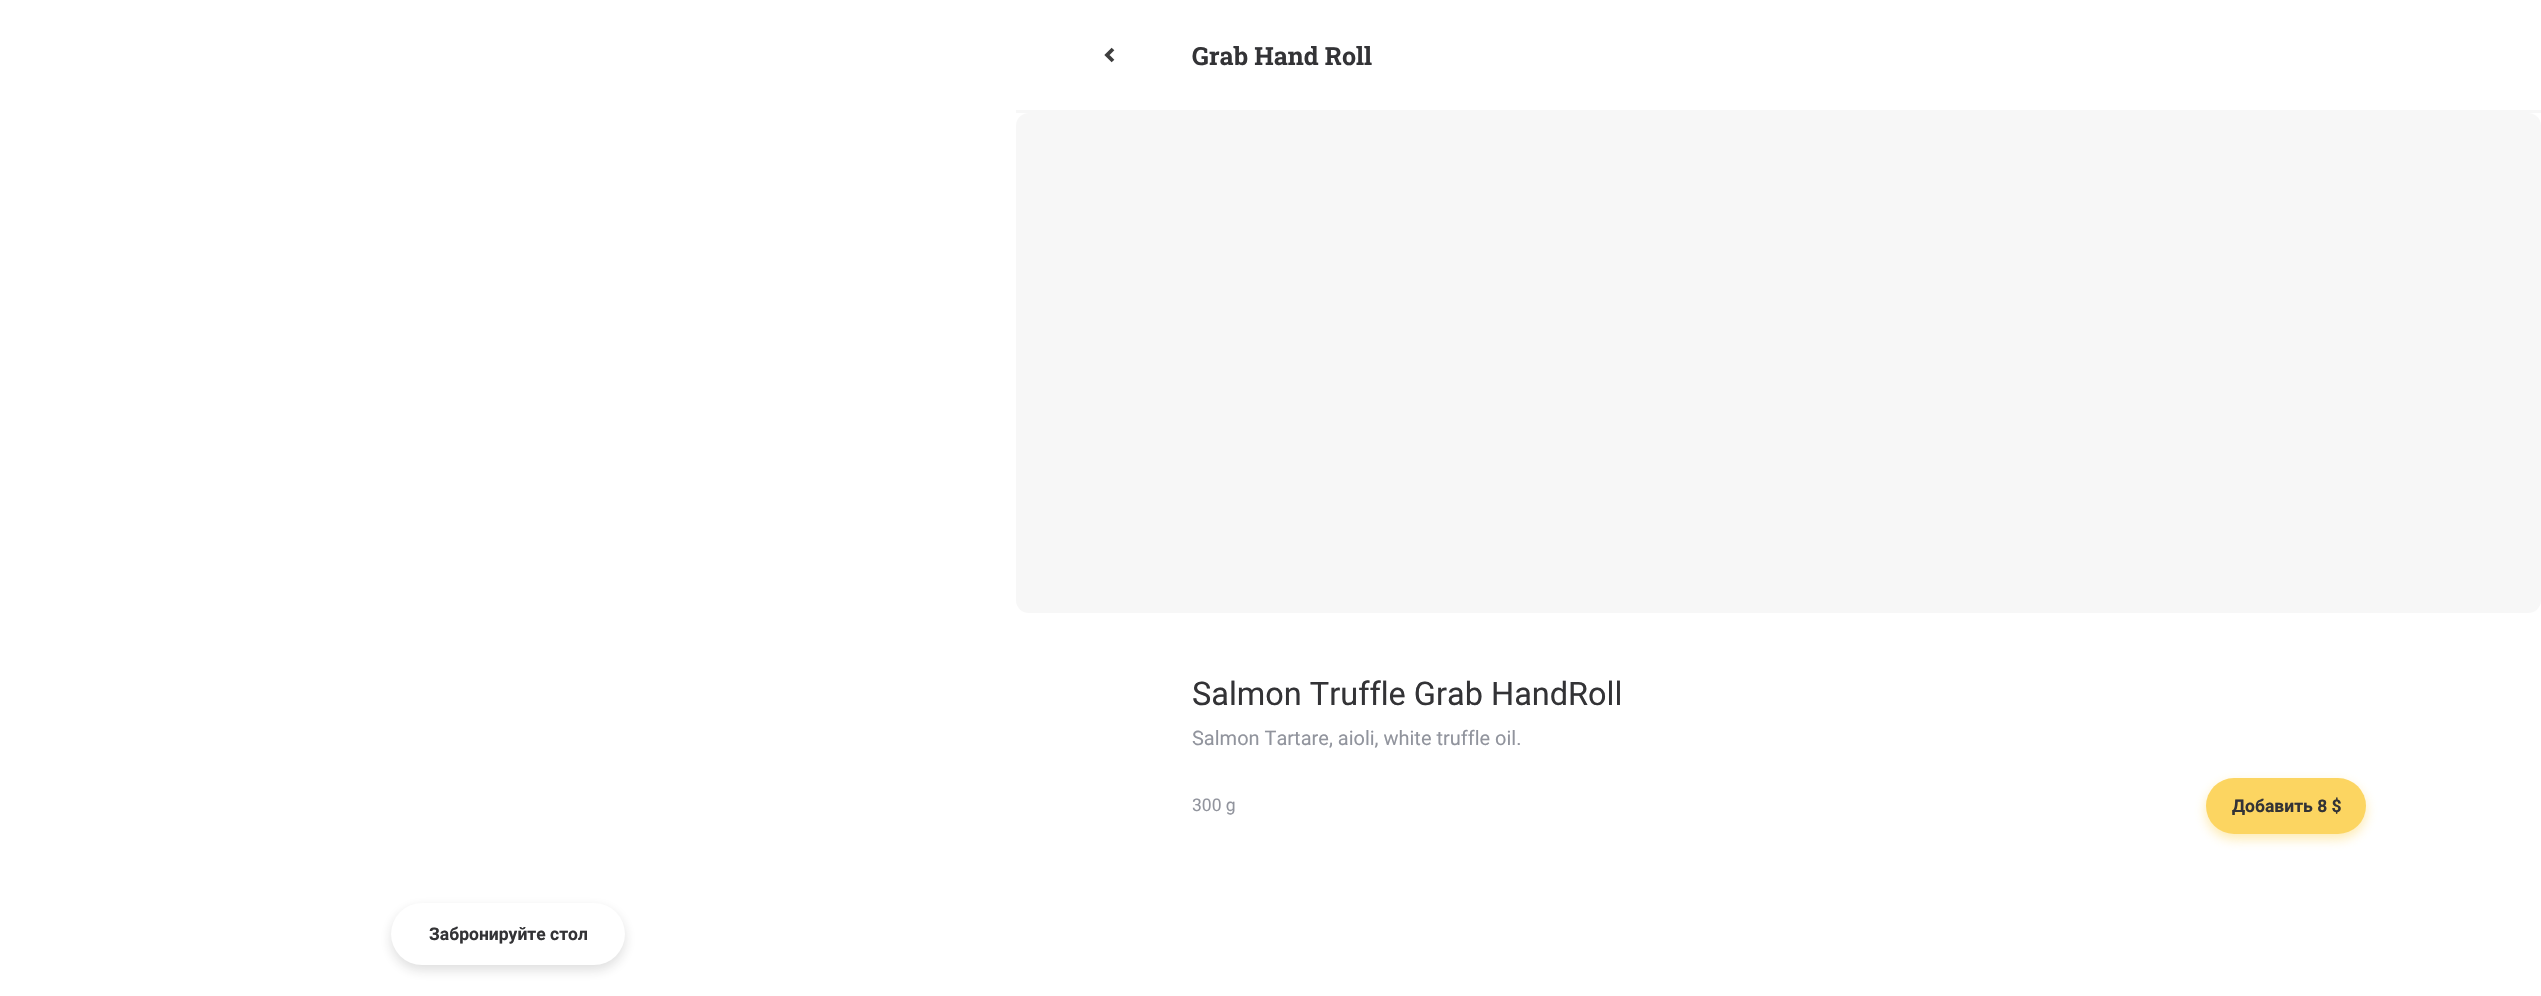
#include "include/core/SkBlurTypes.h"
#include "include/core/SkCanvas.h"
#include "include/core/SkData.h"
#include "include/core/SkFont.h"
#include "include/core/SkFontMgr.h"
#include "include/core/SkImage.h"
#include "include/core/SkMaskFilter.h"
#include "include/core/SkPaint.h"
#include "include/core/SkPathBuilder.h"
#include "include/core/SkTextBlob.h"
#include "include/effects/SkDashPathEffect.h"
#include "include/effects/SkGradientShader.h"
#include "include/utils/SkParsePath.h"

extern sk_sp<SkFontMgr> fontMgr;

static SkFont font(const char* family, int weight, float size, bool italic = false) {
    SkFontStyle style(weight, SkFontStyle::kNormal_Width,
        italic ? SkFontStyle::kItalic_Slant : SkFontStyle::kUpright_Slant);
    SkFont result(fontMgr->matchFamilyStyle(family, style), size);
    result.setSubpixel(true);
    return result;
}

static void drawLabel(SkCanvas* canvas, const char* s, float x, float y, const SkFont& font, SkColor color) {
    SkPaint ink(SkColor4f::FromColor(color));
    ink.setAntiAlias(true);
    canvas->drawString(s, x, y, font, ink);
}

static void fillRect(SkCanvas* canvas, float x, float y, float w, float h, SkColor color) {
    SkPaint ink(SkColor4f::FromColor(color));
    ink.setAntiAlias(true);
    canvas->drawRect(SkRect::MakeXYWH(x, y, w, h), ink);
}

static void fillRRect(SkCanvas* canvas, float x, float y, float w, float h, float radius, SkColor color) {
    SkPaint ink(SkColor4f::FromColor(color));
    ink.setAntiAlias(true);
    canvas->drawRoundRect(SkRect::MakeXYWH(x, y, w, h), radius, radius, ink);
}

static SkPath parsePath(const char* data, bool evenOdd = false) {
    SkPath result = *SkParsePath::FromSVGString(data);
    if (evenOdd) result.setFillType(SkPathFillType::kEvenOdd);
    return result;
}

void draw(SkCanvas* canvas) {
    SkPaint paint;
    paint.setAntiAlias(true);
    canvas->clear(0xFFFFFFFF);
    fillRect(canvas, 1016, 110, 1525, 3, 0xFFF7F7F7);
    paint.setStroke(true);
    paint.setStrokeWidth(3.8f);
    paint.setColor(0xFF3E3E3E);
    canvas->drawPath(parsePath("M1113 61L1107 55L1113 49"), paint);
    SkFont font1 = font("Roboto Slab", 700, 25);
    drawLabel(canvas, "Grab Hand Roll", 1192, 65, font1, 0xFF333336);
    fillRRect(canvas, 1016, 113, 1525, 500, 13, 0xFFF7F7F7);
    SkFont font2 = font("Roboto", 400, 32.5f);
    drawLabel(canvas, "Salmon Truffle Grab HandRoll", 1192, 705, font2, 0xFF333336);
    SkFont font3 = font("Roboto", 400, 20);
    drawLabel(canvas, "Salmon Tartare, aioli, white truffle oil.", 1192, 745, font3, 0xFF91949D);
    SkFont font4 = font("Roboto", 400, 17.5f);
    drawLabel(canvas, "300 g", 1192, 811, font4, 0xFF91949D);
    paint.setStroke(false);
    paint.setColor(0x80FCD561);
    paint.setMaskFilter(SkMaskFilter::MakeBlur(kNormal_SkBlurStyle, 6));
    canvas->drawRoundRect(SkRect::MakeXYWH(2206, 783, 160, 56), 28, 28, paint);
    paint.setMaskFilter(nullptr);
    fillRRect(canvas, 2206, 778, 160, 56, 28, 0xFFFCD561);
    SkFont font5 = font("Roboto", 700, 17.5f);
    drawLabel(canvas, "Добавить 8 $", 2232, 812, font5, 0xFF333336);
    paint.setColor(0x26212121);
    paint.setMaskFilter(SkMaskFilter::MakeBlur(kNormal_SkBlurStyle, 6));
    canvas->drawRoundRect(SkRect::MakeXYWH(391, 908, 234, 62), 31, 31, paint);
    paint.setMaskFilter(nullptr);
    fillRRect(canvas, 391, 903, 234, 62, 31, 0xFFFFFFFF);
    drawLabel(canvas, "Забронируйте стол", 429, 940, font5, 0xFF333336);
}
